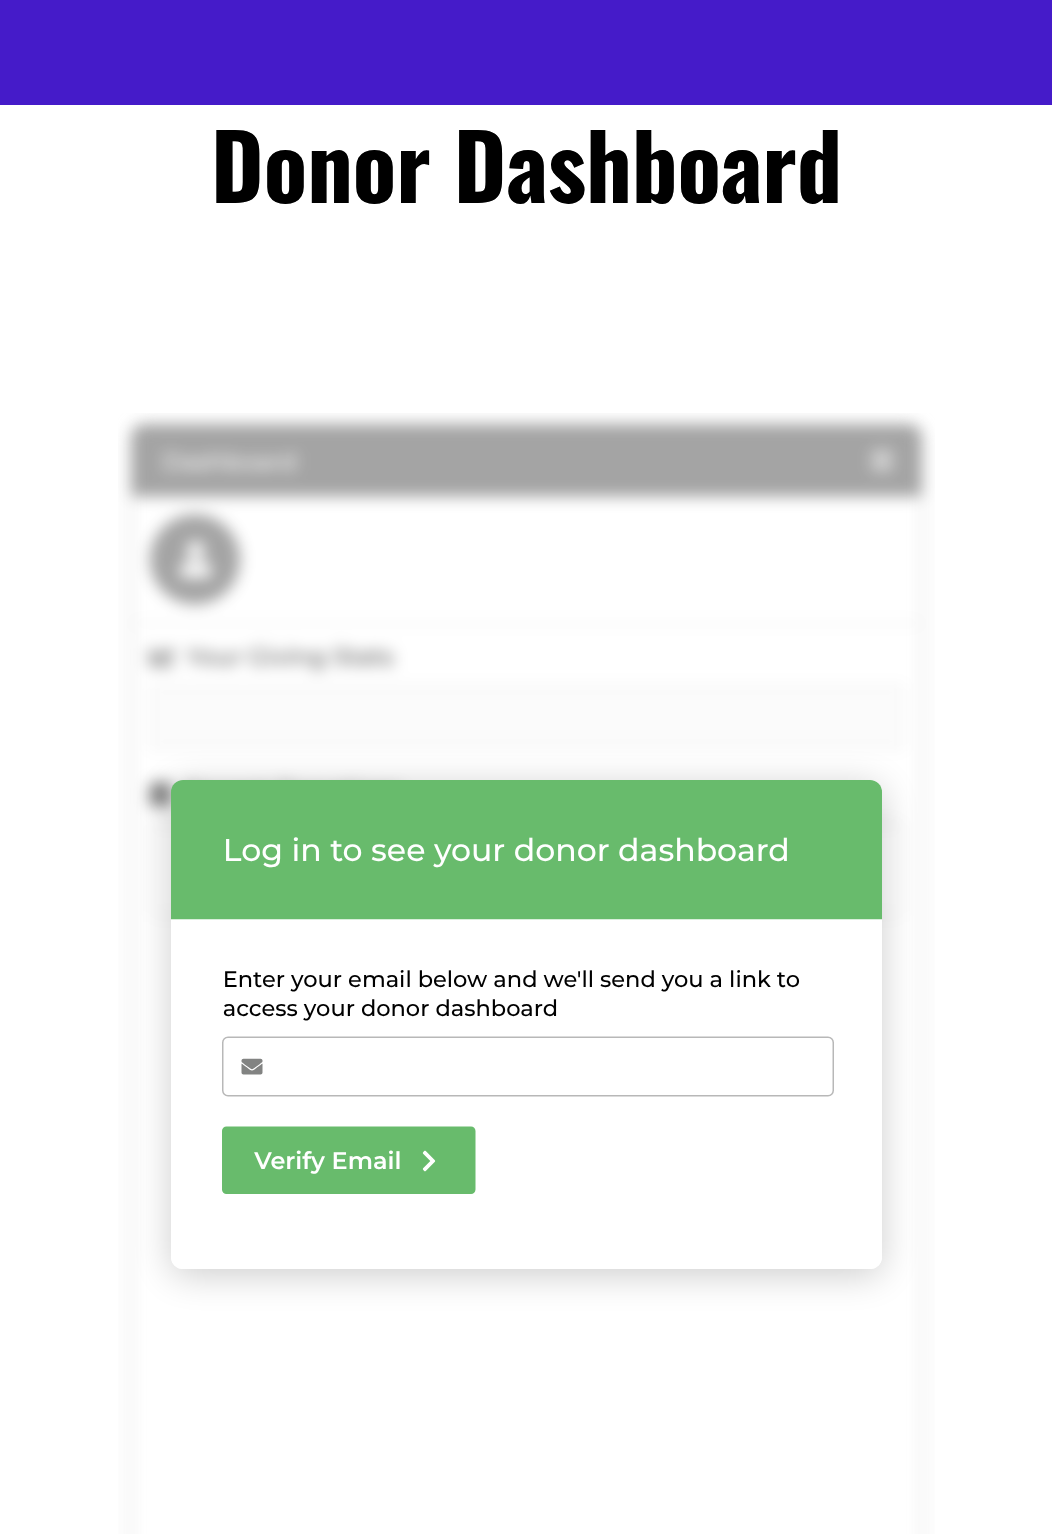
#include "include/core/SkBlurTypes.h"
#include "include/core/SkCanvas.h"
#include "include/core/SkData.h"
#include "include/core/SkFont.h"
#include "include/core/SkFontMgr.h"
#include "include/core/SkImage.h"
#include "include/core/SkMaskFilter.h"
#include "include/core/SkPaint.h"
#include "include/core/SkPathBuilder.h"
#include "include/core/SkTextBlob.h"
#include "include/effects/SkDashPathEffect.h"
#include "include/effects/SkGradientShader.h"
#include "include/utils/SkParsePath.h"

extern sk_sp<SkFontMgr> fontMgr;

static SkFont font(const char* family, int weight, float size, bool italic = false) {
    SkFontStyle style(weight, SkFontStyle::kNormal_Width,
        italic ? SkFontStyle::kItalic_Slant : SkFontStyle::kUpright_Slant);
    SkFont result(fontMgr->matchFamilyStyle(family, style), size);
    result.setSubpixel(true);
    return result;
}

static void drawLabel(SkCanvas* canvas, const char* s, float x, float y, const SkFont& font, SkColor color) {
    SkPaint ink(SkColor4f::FromColor(color));
    ink.setAntiAlias(true);
    canvas->drawString(s, x, y, font, ink);
}

static void fillRect(SkCanvas* canvas, float x, float y, float w, float h, SkColor color) {
    SkPaint ink(SkColor4f::FromColor(color));
    ink.setAntiAlias(true);
    canvas->drawRect(SkRect::MakeXYWH(x, y, w, h), ink);
}

static void drawPhoto(SkCanvas* canvas, const char* path, float x, float y, float w, float h) {
    auto image = SkImages::DeferredFromEncodedData(SkData::MakeFromFileName(path));
    canvas->drawImageRect(image, SkRect::MakeXYWH(x, y, w, h), SkSamplingOptions());
}

void draw(SkCanvas* canvas) {
    SkPaint paint;
    paint.setAntiAlias(true);
    canvas->clear(0xFFFFFFFF);
    fillRect(canvas, 0, 0, 1052, 105, 0xFF451BC9);
    SkFont font1 = font("Oswald", 700, 90);
    drawLabel(canvas, "Donor Dashboard", 211, 203, font1, 0xFF000000);
    drawPhoto(canvas, "assets/img1.png", 118, 413, 817, 1121);
}
